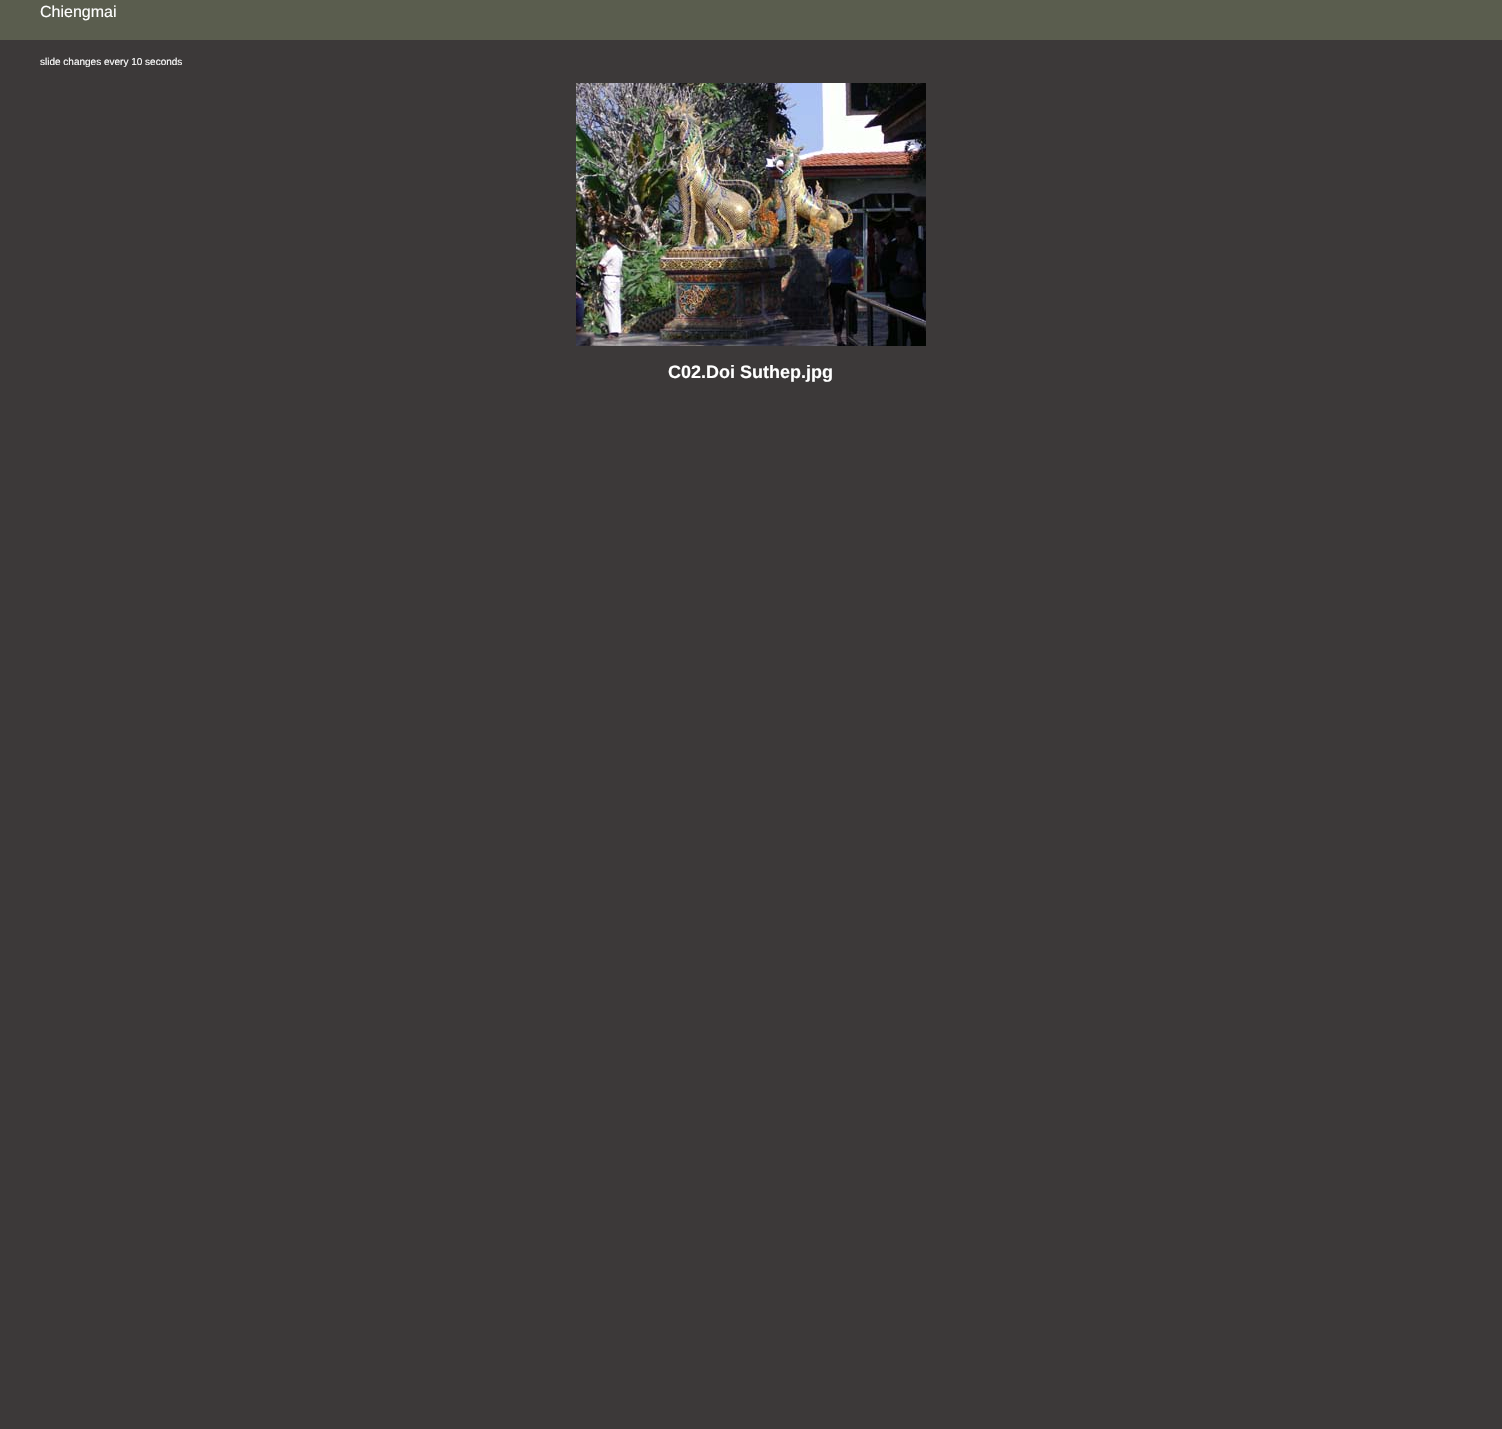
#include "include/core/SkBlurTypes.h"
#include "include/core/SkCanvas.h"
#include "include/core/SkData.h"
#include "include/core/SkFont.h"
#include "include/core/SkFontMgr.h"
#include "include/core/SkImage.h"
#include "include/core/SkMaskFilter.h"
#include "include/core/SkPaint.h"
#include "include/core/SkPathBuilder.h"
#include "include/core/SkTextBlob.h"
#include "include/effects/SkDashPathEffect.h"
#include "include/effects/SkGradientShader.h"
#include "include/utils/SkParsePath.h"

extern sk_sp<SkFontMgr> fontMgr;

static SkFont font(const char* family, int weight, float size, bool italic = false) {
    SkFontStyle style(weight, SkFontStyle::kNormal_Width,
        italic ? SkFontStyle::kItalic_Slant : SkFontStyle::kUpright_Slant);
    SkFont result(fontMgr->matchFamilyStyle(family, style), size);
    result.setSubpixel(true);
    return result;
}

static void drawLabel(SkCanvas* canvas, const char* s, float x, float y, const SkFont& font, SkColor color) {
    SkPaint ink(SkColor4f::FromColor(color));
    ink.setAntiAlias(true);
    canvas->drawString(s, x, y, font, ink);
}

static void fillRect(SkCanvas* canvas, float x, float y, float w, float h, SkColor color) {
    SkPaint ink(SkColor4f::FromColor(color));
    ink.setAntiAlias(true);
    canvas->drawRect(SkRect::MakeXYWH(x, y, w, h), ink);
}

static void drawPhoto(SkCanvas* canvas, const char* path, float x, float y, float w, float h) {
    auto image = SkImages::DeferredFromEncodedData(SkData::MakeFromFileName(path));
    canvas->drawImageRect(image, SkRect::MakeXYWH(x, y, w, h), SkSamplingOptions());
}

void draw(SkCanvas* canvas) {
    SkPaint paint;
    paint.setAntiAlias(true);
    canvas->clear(0xFF3C3939);
    fillRect(canvas, 0, 0, 1502, 40, 0xFF5A5D4E);
    SkFont font1 = font("Liberation Sans", 400, 16);
    drawLabel(canvas, "Chiengmai", 40, 17, font1, 0xFFFFFFFF);
    SkFont font2 = font("Liberation Sans", 400, 10);
    drawLabel(canvas, "slide changes every 10 seconds", 40, 65, font2, 0xFFFFFFFF);
    drawPhoto(canvas, "assets/img1.png", 576, 83, 350, 263);
    SkFont font3 = font("Liberation Sans", 700, 18);
    drawLabel(canvas, "C02.Doi Suthep.jpg", 668, 378, font3, 0xFFFFFFFF);
}
